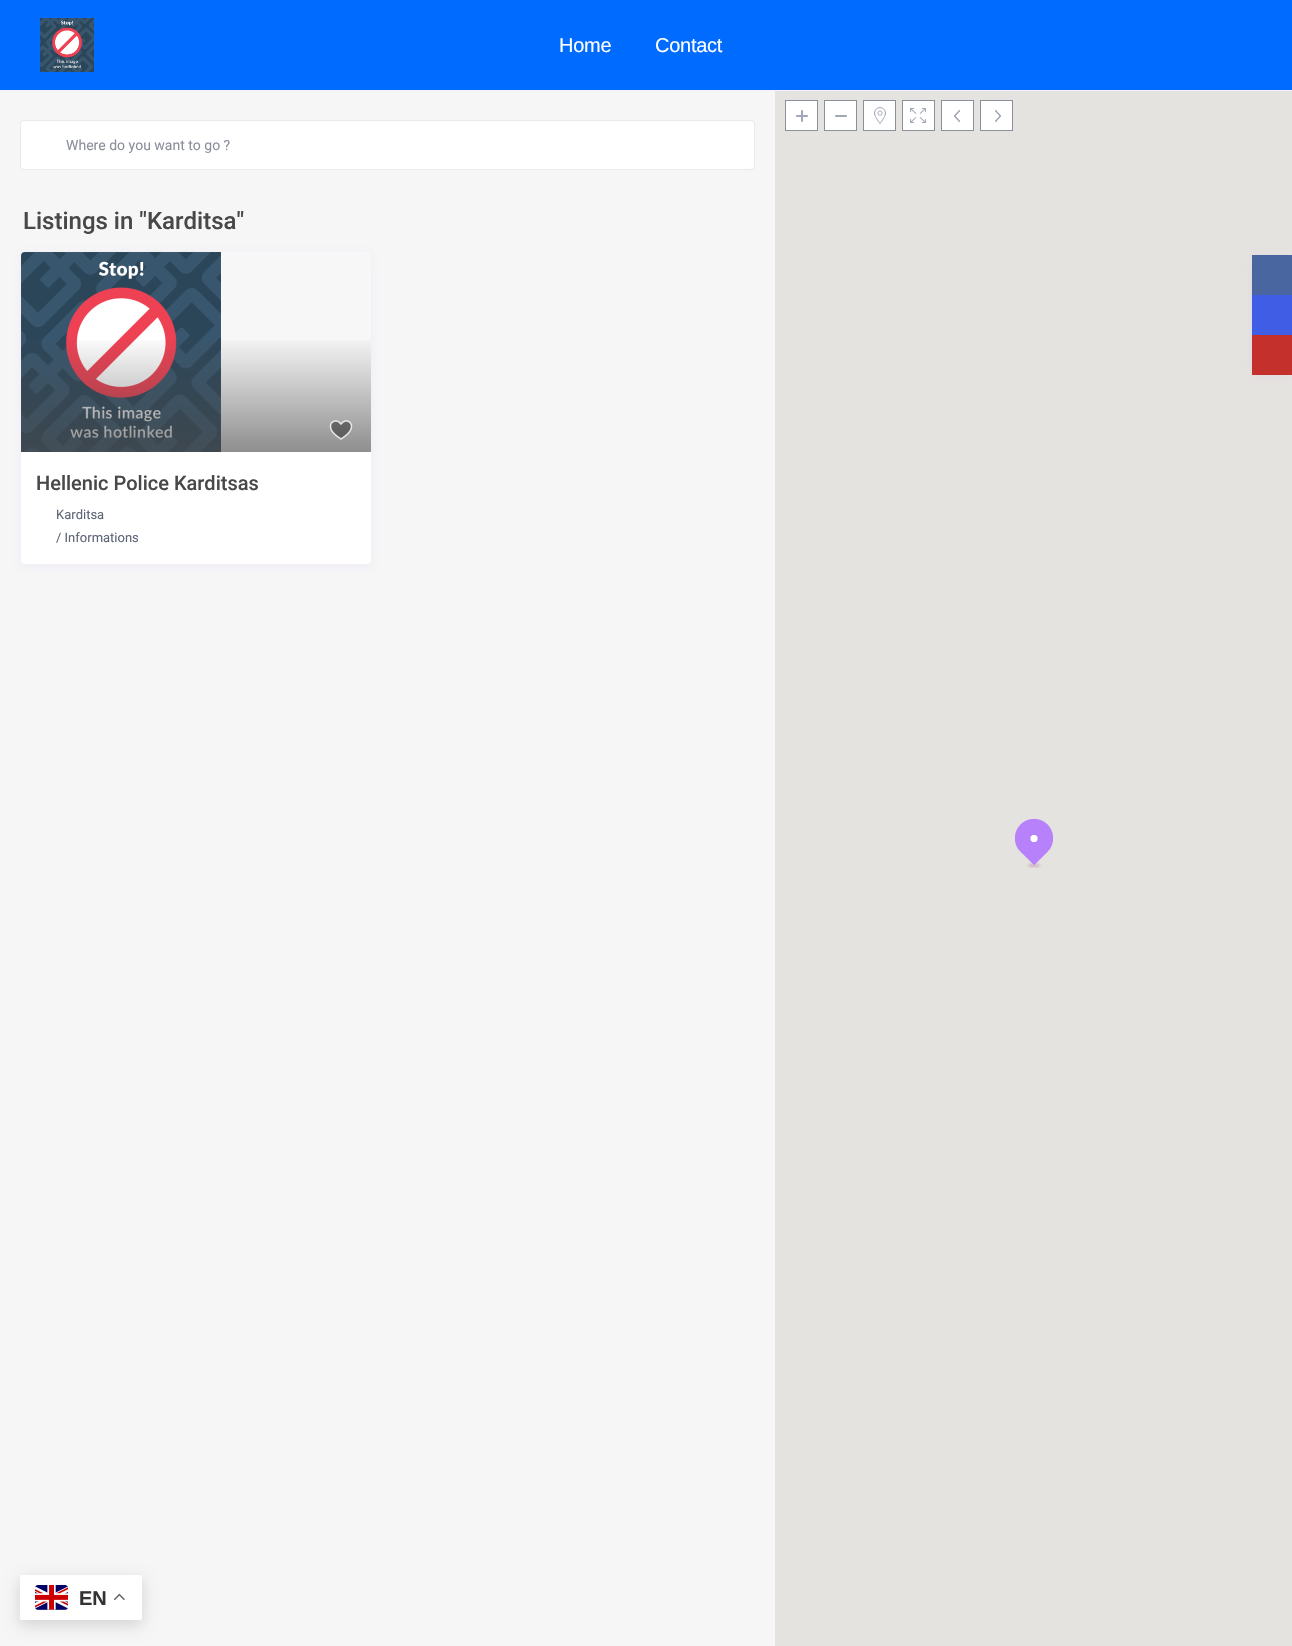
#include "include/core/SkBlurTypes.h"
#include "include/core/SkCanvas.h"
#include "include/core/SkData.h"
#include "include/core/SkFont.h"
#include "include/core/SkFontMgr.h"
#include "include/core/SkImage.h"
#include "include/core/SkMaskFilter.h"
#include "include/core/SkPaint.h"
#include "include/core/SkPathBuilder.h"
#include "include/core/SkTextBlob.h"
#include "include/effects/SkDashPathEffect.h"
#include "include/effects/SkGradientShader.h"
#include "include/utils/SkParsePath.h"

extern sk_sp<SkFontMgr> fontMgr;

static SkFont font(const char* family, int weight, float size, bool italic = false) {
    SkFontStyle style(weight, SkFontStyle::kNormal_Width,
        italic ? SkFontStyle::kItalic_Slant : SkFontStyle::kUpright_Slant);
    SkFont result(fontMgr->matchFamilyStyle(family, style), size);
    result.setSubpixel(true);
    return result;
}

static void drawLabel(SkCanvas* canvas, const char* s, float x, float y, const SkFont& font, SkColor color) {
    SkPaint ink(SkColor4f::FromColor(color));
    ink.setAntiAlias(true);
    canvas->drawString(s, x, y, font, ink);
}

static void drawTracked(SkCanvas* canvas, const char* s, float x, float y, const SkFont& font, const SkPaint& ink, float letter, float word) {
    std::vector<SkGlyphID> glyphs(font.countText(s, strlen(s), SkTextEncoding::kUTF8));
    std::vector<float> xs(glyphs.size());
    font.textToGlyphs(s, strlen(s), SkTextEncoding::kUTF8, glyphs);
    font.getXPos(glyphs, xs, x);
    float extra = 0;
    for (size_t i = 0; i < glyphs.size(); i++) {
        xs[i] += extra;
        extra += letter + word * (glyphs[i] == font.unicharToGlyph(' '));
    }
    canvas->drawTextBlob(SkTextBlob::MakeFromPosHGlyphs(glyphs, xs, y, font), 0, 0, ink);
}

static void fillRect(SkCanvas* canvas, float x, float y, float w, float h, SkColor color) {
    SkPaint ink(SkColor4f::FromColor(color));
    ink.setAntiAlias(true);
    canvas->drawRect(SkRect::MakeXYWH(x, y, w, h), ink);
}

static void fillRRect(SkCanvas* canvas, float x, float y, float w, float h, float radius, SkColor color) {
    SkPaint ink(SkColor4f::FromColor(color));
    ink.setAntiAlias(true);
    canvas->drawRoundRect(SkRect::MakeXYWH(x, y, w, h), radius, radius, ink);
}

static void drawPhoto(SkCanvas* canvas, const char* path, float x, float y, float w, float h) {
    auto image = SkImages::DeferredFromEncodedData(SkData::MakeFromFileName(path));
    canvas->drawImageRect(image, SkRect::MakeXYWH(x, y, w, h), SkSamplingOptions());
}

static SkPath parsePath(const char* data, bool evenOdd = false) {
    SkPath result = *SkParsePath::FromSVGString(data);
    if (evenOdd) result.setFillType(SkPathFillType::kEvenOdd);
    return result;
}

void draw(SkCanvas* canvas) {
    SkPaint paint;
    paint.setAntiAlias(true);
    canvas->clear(0xFFE5E3DF);
    fillRect(canvas, 0, 0, 1292, 90, 0xFF006BFF);
    fillRect(canvas, 0, 90, 1292, 1, 0xFFF1F3F7);
    drawPhoto(canvas, "assets/img1.png", 40, 18, 54, 54);
    SkFont font1 = font("Liberation Sans", 400, 20);
    paint.setColor(0xFFFFFFFF);
    drawTracked(canvas, "Home", 559, 52, font1, paint, -0.25f, 0);
    drawTracked(canvas, "Contact", 655, 52, font1, paint, -0.25f, 0);
    fillRect(canvas, 0, 91, 775, 1555, 0xFFF6F6F6);
    canvas->drawRoundRect(SkRect::MakeXYWH(20.5f, 120.5f, 734, 49), 3.5f, 3.5f, paint);
    paint.setStroke(true);
    paint.setStrokeWidth(1);
    paint.setColor(0xFFE7E9EF);
    canvas->drawRoundRect(SkRect::MakeXYWH(20.5f, 120.5f, 734, 49), 3.5f, 3.5f, paint);
    SkFont font2 = font("Roboto", 400, 14);
    drawLabel(canvas, "Where do you want to go ?", 66, 150, font2, 0xFF8A8F9A);
    SkFont font3 = font("Roboto", 500, 24);
    drawLabel(canvas, "Listings in \"Karditsa\"", 23, 229, font3, 0xFF484848);
    paint.setStroke(false);
    paint.setColor(0x1AB57FFA);
    paint.setMaskFilter(SkMaskFilter::MakeBlur(kNormal_SkBlurStyle, 5.5f));
    canvas->drawRoundRect(SkRect::MakeXYWH(21, 254, 350, 312), 4, 4, paint);
    paint.setMaskFilter(nullptr);
    fillRRect(canvas, 21, 252, 350, 312, 4, 0xFFFFFFFF);
    paint.setColor(0xFFF7F7F7);
    canvas->drawPath(parsePath("M25 252H367C369 252 371 254 371 256V449C371 450.5 369.5 452 368 452H24C22.5 452 21 450.5 21 449V256C21 254 23 252 25 252Z"), paint);
    drawPhoto(canvas, "assets/img2.png", 21, 252, 200, 200);
    {
        const SkColor colors[] = {0x00484848, 0x99484848};
        const float stops[] = {0.03f, 1};
        const SkPoint ends[] = {{196, 332}, {196, 452}};
        paint.setShader(SkGradientShader::MakeLinear(ends, colors, stops, 2, SkTileMode::kClamp));
        paint.setAlpha(255);
    }
    canvas->drawRect(SkRect::MakeXYWH(21, 340, 350, 112), paint);
    drawPhoto(canvas, "assets/img3.png", 329, 420, 24, 20);
    SkFont font4 = font("Roboto", 500, 20);
    drawLabel(canvas, "Hellenic Police Karditsas", 36, 490, font4, 0xFF484848);
    SkFont font5 = font("Roboto", 400, 13);
    drawLabel(canvas, "Karditsa", 56, 519, font5, 0xFF5D6475);
    drawLabel(canvas, "/ Informations", 56, 542, font5, 0xFF5D6475);
    fillRect(canvas, 786, 101, 31, 29, 0xFFFFFFFF);
    drawPhoto(canvas, "assets/img4.png", 796, 110, 12, 12);
    paint.setStroke(true);
    paint.setShader(nullptr);
    paint.setColor(0xFF8A8F9A);
    canvas->drawRect(SkRect::MakeXYWH(785.5f, 100.5f, 32, 30), paint);
    fillRect(canvas, 825, 101, 31, 29, 0xFFFFFFFF);
    drawPhoto(canvas, "assets/img5.png", 835, 115, 12, 2);
    canvas->drawRect(SkRect::MakeXYWH(824.5f, 100.5f, 32, 30), paint);
    fillRect(canvas, 864, 101, 31, 29, 0xFFFFFFFF);
    drawPhoto(canvas, "assets/img6.png", 874, 107, 12, 17);
    canvas->drawRect(SkRect::MakeXYWH(863.5f, 100.5f, 32, 30), paint);
    fillRect(canvas, 903, 101, 31, 29, 0xFFFFFFFF);
    drawPhoto(canvas, "assets/img7.png", 910, 108, 16, 15);
    canvas->drawRect(SkRect::MakeXYWH(902.5f, 100.5f, 32, 30), paint);
    fillRect(canvas, 942, 101, 31, 29, 0xFFFFFFFF);
    drawPhoto(canvas, "assets/img8.png", 954, 110, 6, 12);
    canvas->drawRect(SkRect::MakeXYWH(941.5f, 100.5f, 32, 30), paint);
    fillRect(canvas, 981, 101, 31, 29, 0xFFFFFFFF);
    drawPhoto(canvas, "assets/img9.png", 995, 110, 6, 12);
    canvas->drawRect(SkRect::MakeXYWH(980.5f, 100.5f, 32, 30), paint);
    drawPhoto(canvas, "assets/img10.png", 1015, 819, 38, 49);
    paint.setStroke(false);
    paint.setColor(0x1AB57FFA);
    paint.setMaskFilter(SkMaskFilter::MakeBlur(kNormal_SkBlurStyle, 5.5f));
    canvas->drawRect(SkRect::MakeXYWH(1252, 257, 40, 120), paint);
    paint.setMaskFilter(nullptr);
    fillRect(canvas, 1252, 255, 40, 40, 0xFF4A66A0);
    fillRect(canvas, 1252, 295, 40, 40, 0xFF405DE6);
    fillRect(canvas, 1252, 335, 40, 40, 0xFFC4302B);
    paint.setColor(0x26000000);
    paint.setMaskFilter(SkMaskFilter::MakeBlur(kNormal_SkBlurStyle, 7.5f));
    canvas->drawRoundRect(SkRect::MakeXYWH(20, 1580, 122, 45), 2, 2, paint);
    paint.setMaskFilter(nullptr);
    fillRRect(canvas, 20, 1575, 122, 45, 2, 0xFFFFFFFF);
    drawPhoto(canvas, "assets/img11.png", 35, 1585, 33, 25);
    SkFont font6 = font("Liberation Sans", 700, 20);
    drawLabel(canvas, "EN", 79, 1605, font6, 0xFF333333);
    drawPhoto(canvas, "assets/img12.png", 114, 1593, 11, 8);
}
